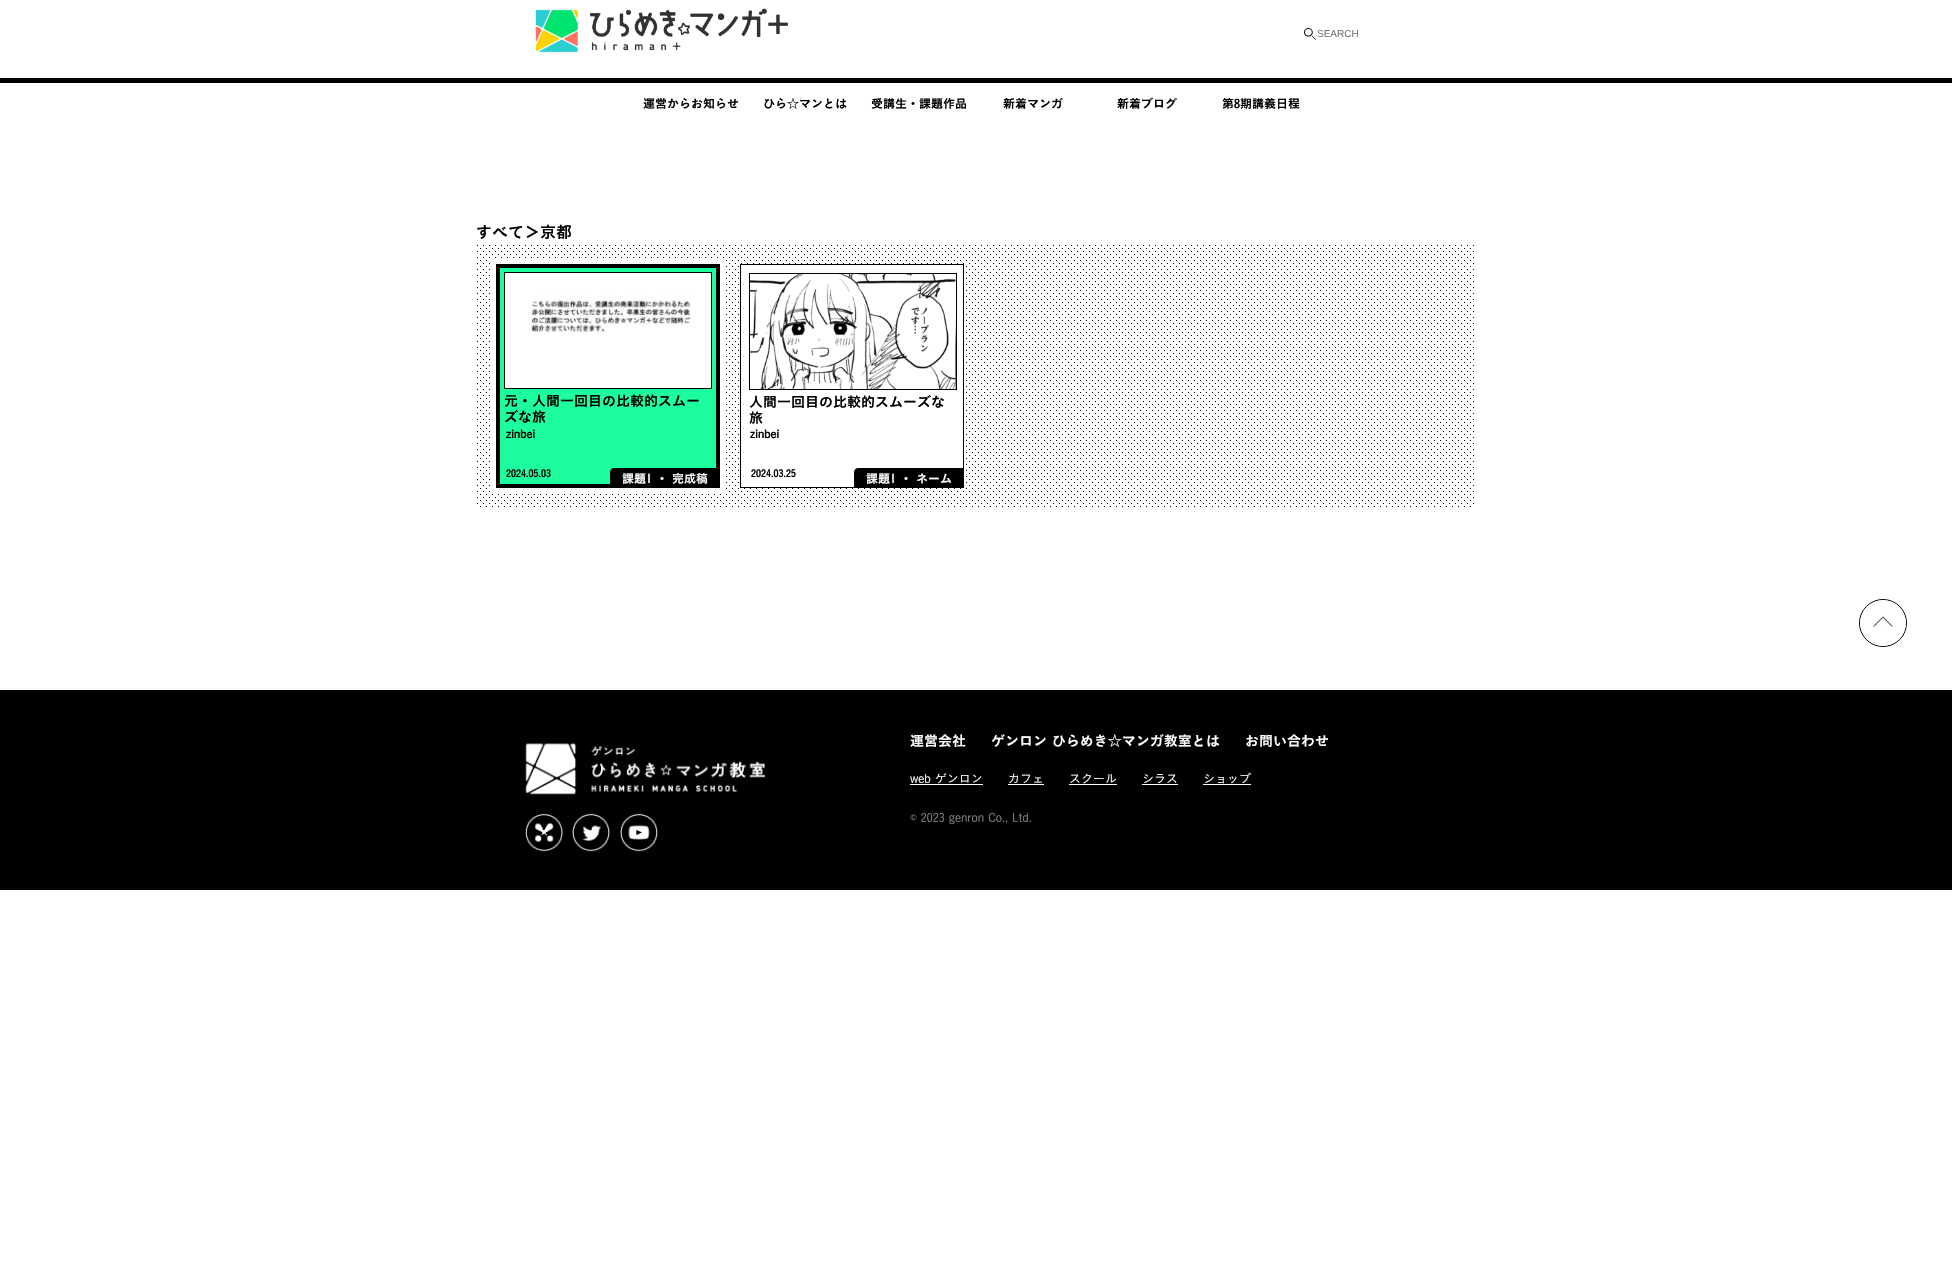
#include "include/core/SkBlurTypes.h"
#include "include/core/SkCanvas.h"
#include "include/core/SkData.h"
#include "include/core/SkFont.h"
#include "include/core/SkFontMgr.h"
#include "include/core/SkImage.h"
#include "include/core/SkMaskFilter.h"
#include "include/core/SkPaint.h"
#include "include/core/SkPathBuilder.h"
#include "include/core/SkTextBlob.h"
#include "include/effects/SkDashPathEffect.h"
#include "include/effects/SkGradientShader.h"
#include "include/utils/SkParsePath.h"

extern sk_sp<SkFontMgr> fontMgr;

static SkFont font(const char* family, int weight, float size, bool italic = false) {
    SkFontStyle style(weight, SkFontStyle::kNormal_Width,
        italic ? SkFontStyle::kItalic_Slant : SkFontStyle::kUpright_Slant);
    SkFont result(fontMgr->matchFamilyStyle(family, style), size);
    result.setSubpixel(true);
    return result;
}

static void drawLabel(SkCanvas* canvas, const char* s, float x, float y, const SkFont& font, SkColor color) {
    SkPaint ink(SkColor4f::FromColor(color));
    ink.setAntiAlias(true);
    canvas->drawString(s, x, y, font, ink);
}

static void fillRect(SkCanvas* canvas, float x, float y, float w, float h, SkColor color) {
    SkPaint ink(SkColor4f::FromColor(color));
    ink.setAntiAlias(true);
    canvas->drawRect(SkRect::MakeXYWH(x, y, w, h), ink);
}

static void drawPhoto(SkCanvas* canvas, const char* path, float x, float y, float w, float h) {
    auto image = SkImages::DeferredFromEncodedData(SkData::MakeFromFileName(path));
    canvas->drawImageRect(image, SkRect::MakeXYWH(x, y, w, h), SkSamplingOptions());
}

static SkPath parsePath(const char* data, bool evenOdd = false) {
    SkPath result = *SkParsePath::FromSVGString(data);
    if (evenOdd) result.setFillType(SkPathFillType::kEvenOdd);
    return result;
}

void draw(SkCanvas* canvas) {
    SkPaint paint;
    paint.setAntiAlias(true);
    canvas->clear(0xFFFFFFFF);
    drawPhoto(canvas, "assets/img1.png", 535, 8, 253, 45);
    drawPhoto(canvas, "assets/img2.png", 1304, 28, 12, 12);
    SkFont font1 = font("Liberation Sans", 400, 10);
    drawLabel(canvas, "SEARCH", 1317, 37, font1, 0xFF757575);
    fillRect(canvas, 0, 78, 1952, 5, 0xFF000000);
    SkFont font2 = font("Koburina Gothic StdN", 600, 12);
    drawLabel(canvas, "運営からお知らせ", 643, 108, font2, 0xFF000000);
    drawLabel(canvas, "ひら☆マンとは", 763, 108, font2, 0xFF000000);
    drawLabel(canvas, "受講生・課題作品", 871, 108, font2, 0xFF000000);
    drawLabel(canvas, "新着マンガ", 1003, 108, font2, 0xFF000000);
    drawLabel(canvas, "新着ブログ", 1117, 108, font2, 0xFF000000);
    drawLabel(canvas, "第8期講義日程", 1222, 108, font2, 0xFF000000);
    SkFont font3 = font("Koburina Gothic StdN", 600, 16);
    drawLabel(canvas, "すべて＞京都", 476, 238, font3, 0xFF000000);
    drawPhoto(canvas, "assets/img3.png", 477, 245, 997, 262);
    paint.setColor(0xFF1DFF9F);
    canvas->drawRect(SkRect::MakeXYWH(498, 266, 220, 220), paint);
    paint.setStroke(true);
    paint.setStrokeWidth(4);
    paint.setColor(0xFF000000);
    canvas->drawRect(SkRect::MakeXYWH(498, 266, 220, 220), paint);
    paint.setStrokeWidth(1);
    canvas->drawRect(SkRect::MakeXYWH(504.5f, 272.5f, 207, 116), paint);
    drawPhoto(canvas, "assets/img4.png", 505, 273, 206, 115);
    paint.setStrokeWidth(4);
    paint.setColor(0xFFFFFFFF);
    canvas->drawRect(SkRect::MakeXYWH(494, 262, 228, 228), paint);
    SkFont font4 = font("Koburina Gothic StdN", 600, 14);
    drawLabel(canvas, "元・人間一回目の比較的スムー", 504, 406, font4, 0xFF000000);
    drawLabel(canvas, "ズな旅", 504, 422, font4, 0xFF000000);
    SkFont font5 = font("Koburina Gothic StdN", 600, 10);
    drawLabel(canvas, "2024.05.03", 506, 477, font5, 0xFF000000);
    SkFont font6 = font("Koburina Gothic StdN", 600, 11);
    drawLabel(canvas, "zinbei", 506, 438, font6, 0xFF000000);
    paint.setStroke(false);
    paint.setColor(0xFF000000);
    canvas->drawPath(parsePath("M614 468H720V488H610V472C610 470 612 468 614 468Z"), paint);
    drawLabel(canvas, "課題1 ・ 完成稿", 622, 483, font2, 0xFFFFFFFF);
    fillRect(canvas, 741, 266, 220, 220, 0xFFFFFFFF);
    paint.setStroke(true);
    paint.setStrokeWidth(1);
    canvas->drawRect(SkRect::MakeXYWH(740.5f, 264.5f, 223, 223), paint);
    canvas->drawRect(SkRect::MakeXYWH(749.5f, 273.5f, 207, 116), paint);
    drawPhoto(canvas, "assets/img5.png", 750, 274, 206, 115);
    drawLabel(canvas, "人間一回目の比較的スムーズな", 749, 407, font4, 0xFF000000);
    drawLabel(canvas, "旅", 749, 423, font4, 0xFF000000);
    drawLabel(canvas, "2024.03.25", 751, 477, font5, 0xFF000000);
    drawLabel(canvas, "zinbei", 750, 438, font6, 0xFF000000);
    paint.setStroke(false);
    canvas->drawPath(parsePath("M858 468H964V488H854V472C854 470 856 468 858 468Z"), paint);
    drawLabel(canvas, "課題1 ・ ネーム", 866, 483, font2, 0xFFFFFFFF);
    fillRect(canvas, 0, 690, 1952, 200, 0xFF000000);
    paint.setStroke(true);
    canvas->drawCircle(1883, 623, 23.5f, paint);
    drawPhoto(canvas, "assets/img6.png", 1860, 600, 46, 46);
    drawPhoto(canvas, "assets/img7.png", 525, 743, 240, 52);
    drawPhoto(canvas, "assets/img8.png", 525, 813, 39, 39);
    drawPhoto(canvas, "assets/img9.png", 572, 813, 39, 39);
    drawPhoto(canvas, "assets/img10.png", 619, 813, 39, 39);
    drawLabel(canvas, "運営会社", 910, 746, font4, 0xFFFFFFFF);
    drawLabel(canvas, "ゲンロン ひらめき☆マンガ教室とは", 991, 746, font4, 0xFFFFFFFF);
    drawLabel(canvas, "お問い合わせ", 1245, 746, font4, 0xFFFFFFFF);
    SkFont font7 = font("Koburina Gothic StdN", 300, 12);
    drawLabel(canvas, "web ゲンロン", 910, 783, font7, 0xFFFFFFFF);
    fillRect(canvas, 910, 784, 73, 1, 0xFFFFFFFF);
    drawLabel(canvas, "カフェ", 1008, 783, font7, 0xFFFFFFFF);
    fillRect(canvas, 1008, 784, 36, 1, 0xFFFFFFFF);
    drawLabel(canvas, "スクール", 1069, 783, font7, 0xFFFFFFFF);
    fillRect(canvas, 1069, 784, 48, 1, 0xFFFFFFFF);
    drawLabel(canvas, "シラス", 1142, 783, font7, 0xFFFFFFFF);
    fillRect(canvas, 1142, 784, 36, 1, 0xFFFFFFFF);
    drawLabel(canvas, "ショップ", 1203, 783, font7, 0xFFFFFFFF);
    fillRect(canvas, 1203, 784, 48, 1, 0xFFFFFFFF);
    drawLabel(canvas, "© 2023 genron Co., Ltd.", 910, 822, font7, 0xFF848484);
}
